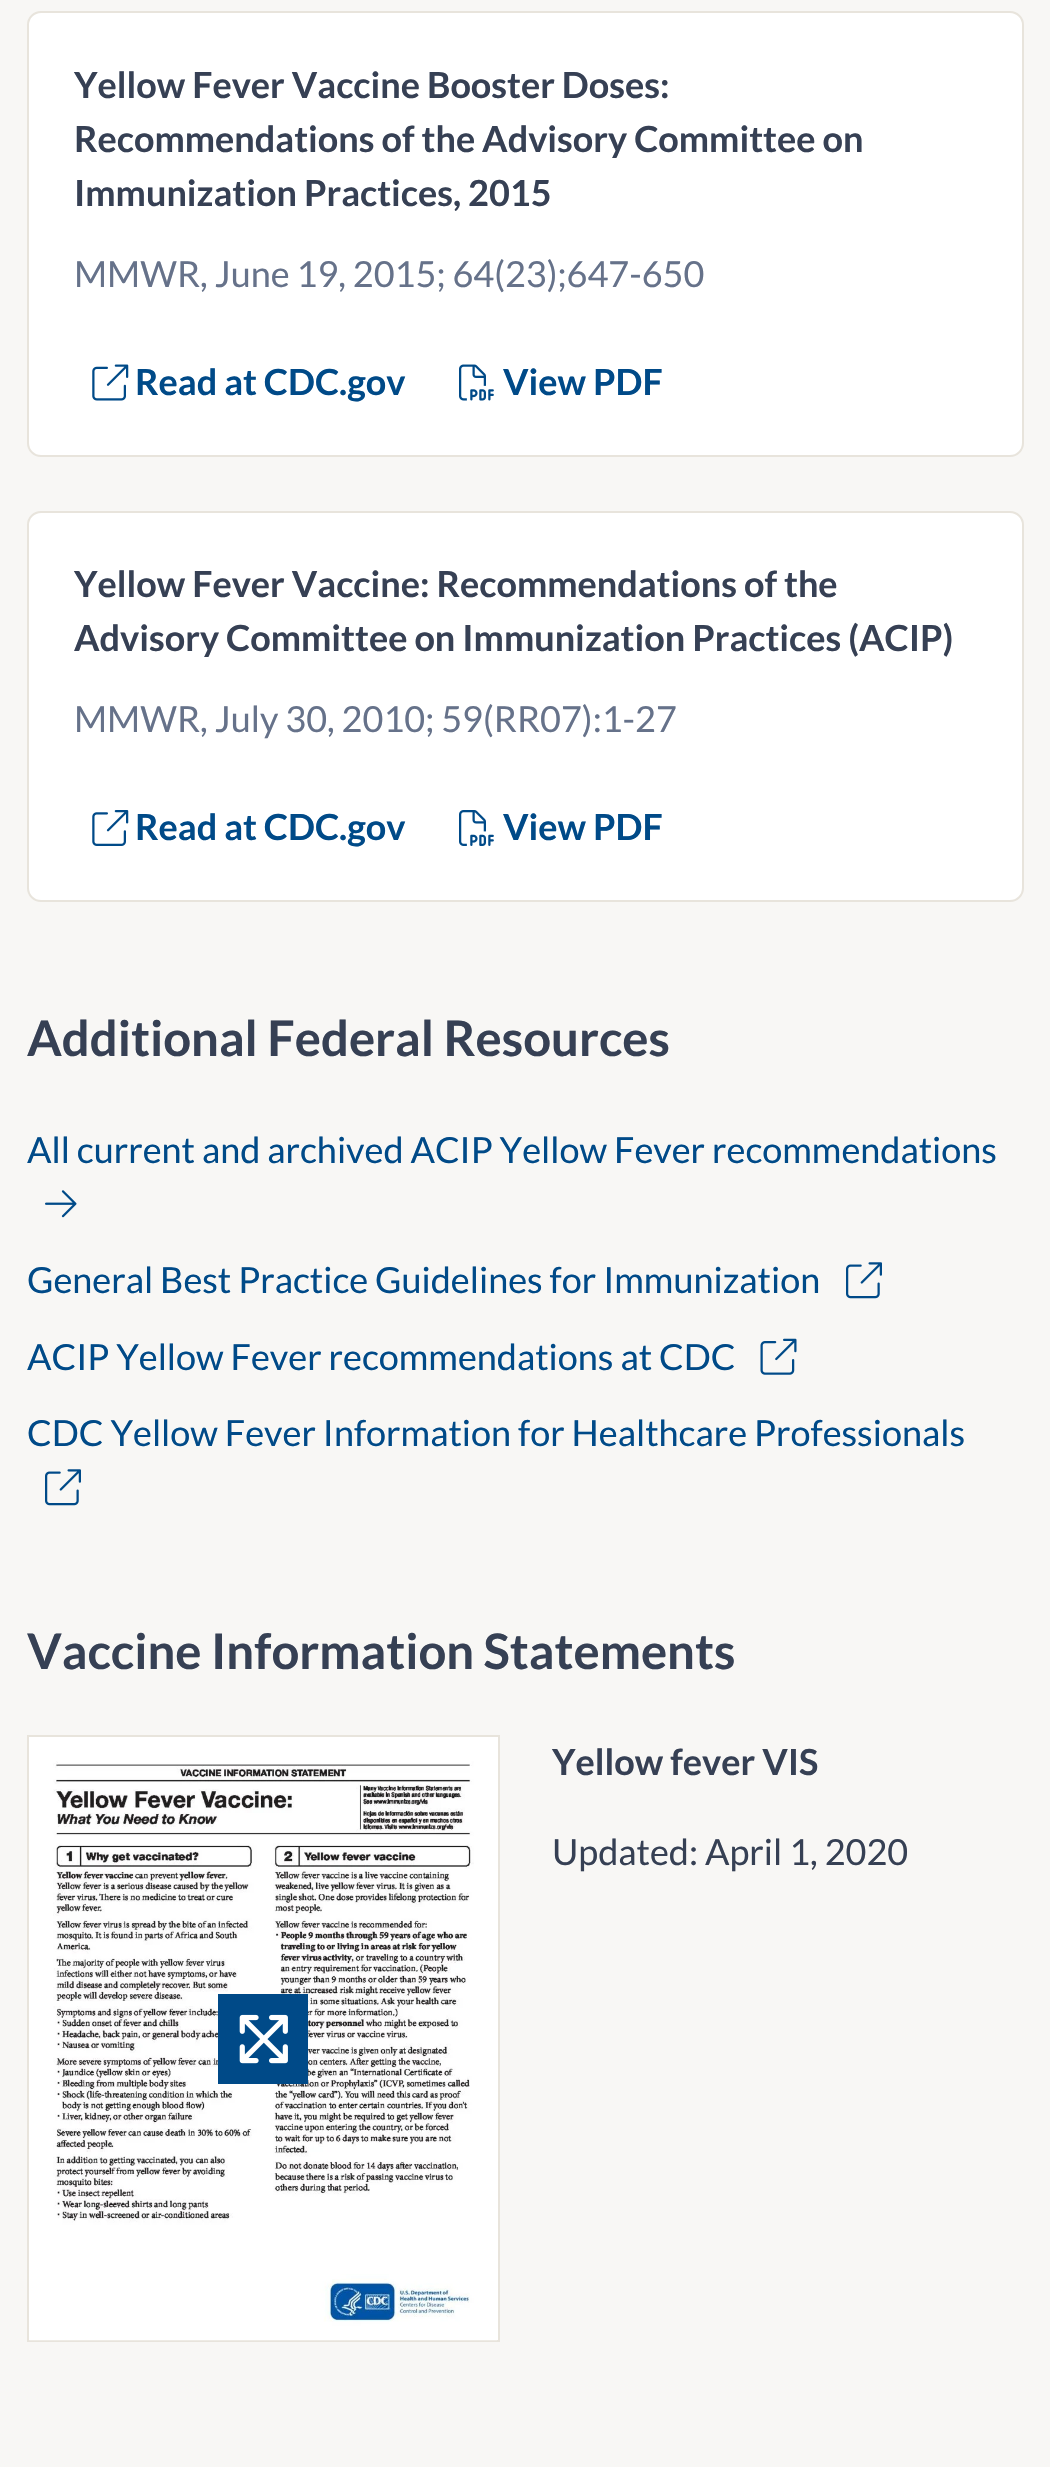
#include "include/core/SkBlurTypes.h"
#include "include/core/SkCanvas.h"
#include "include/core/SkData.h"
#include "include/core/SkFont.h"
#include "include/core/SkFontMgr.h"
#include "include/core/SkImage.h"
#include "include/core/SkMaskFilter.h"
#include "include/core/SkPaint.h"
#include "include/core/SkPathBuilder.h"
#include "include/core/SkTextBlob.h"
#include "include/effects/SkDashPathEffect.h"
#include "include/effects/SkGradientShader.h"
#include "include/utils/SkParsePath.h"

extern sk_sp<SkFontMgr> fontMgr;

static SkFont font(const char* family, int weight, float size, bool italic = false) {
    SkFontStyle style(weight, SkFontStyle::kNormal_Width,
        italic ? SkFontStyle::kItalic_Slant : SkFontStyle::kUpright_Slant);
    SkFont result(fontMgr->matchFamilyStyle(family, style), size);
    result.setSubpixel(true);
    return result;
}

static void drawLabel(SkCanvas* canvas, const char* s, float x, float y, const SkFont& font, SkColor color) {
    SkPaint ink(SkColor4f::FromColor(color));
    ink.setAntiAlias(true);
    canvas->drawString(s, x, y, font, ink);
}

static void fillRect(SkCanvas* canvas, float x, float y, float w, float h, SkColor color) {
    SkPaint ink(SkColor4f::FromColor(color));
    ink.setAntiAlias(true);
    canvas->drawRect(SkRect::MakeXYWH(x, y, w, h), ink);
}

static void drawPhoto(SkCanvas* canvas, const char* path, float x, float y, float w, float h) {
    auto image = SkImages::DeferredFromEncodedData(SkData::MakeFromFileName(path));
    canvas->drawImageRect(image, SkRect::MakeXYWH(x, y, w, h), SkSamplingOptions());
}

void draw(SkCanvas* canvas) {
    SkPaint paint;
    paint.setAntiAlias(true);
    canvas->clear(0xFFF8F7F5);
    paint.setColor(0xFFFFFFFF);
    canvas->drawRoundRect(SkRect::MakeXYWH(28, 12, 995, 444), 13, 13, paint);
    paint.setStroke(true);
    paint.setStrokeWidth(2);
    paint.setColor(0xFFE8E4DC);
    canvas->drawRoundRect(SkRect::MakeXYWH(28, 12, 995, 444), 13, 13, paint);
    SkFont font1 = font("Lato", 700, 36);
    drawLabel(canvas, "Yellow Fever Vaccine Booster Doses:", 74, 98, font1, 0xFF364054);
    drawLabel(canvas, "Recommendations of the Advisory Committee on", 74, 152, font1, 0xFF364054);
    drawLabel(canvas, "Immunization Practices, 2015", 74, 206, font1, 0xFF364054);
    SkFont font2 = font("Lato", 400, 36);
    drawLabel(canvas, "MMWR, June 19, 2015; 64(23);647-650", 74, 287, font2, 0xFF66728A);
    drawPhoto(canvas, "assets/img1.png", 92, 364, 37, 37);
    drawLabel(canvas, "Read at CDC.gov", 135, 395, font1, 0xFF004A88);
    drawPhoto(canvas, "assets/img2.png", 459, 364, 35, 37);
    drawLabel(canvas, "View PDF", 503, 395, font1, 0xFF004A88);
    paint.setStroke(false);
    paint.setColor(0xFFFFFFFF);
    canvas->drawRoundRect(SkRect::MakeXYWH(28, 512, 995, 389), 13, 13, paint);
    paint.setStroke(true);
    paint.setColor(0xFFE8E4DC);
    canvas->drawRoundRect(SkRect::MakeXYWH(28, 512, 995, 389), 13, 13, paint);
    drawLabel(canvas, "Yellow Fever Vaccine: Recommendations of the", 74, 597, font1, 0xFF364054);
    drawLabel(canvas, "Advisory Committee on Immunization Practices (ACIP)", 74, 651, font1, 0xFF364054);
    drawLabel(canvas, "MMWR, July 30, 2010; 59(RR07):1-27", 74, 732, font2, 0xFF66728A);
    drawPhoto(canvas, "assets/img3.png", 92, 810, 37, 36);
    drawLabel(canvas, "Read at CDC.gov", 135, 840, font1, 0xFF004A88);
    drawPhoto(canvas, "assets/img4.png", 459, 810, 35, 36);
    drawLabel(canvas, "View PDF", 503, 840, font1, 0xFF004A88);
    SkFont font3 = font("Lato", 700, 49);
    drawLabel(canvas, "Additional Federal Resources", 27, 1056, font3, 0xFF364054);
    drawLabel(canvas, "All current and archived ACIP Yellow Fever recommendations", 27, 1163, font2, 0xFF004A88);
    drawPhoto(canvas, "assets/img5.png", 45, 1190, 32, 28);
    drawLabel(canvas, "General Best Practice Guidelines for Immunization", 27, 1293, font2, 0xFF004A88);
    drawPhoto(canvas, "assets/img6.png", 846, 1262, 36, 37);
    drawLabel(canvas, "ACIP Yellow Fever recommendations at CDC", 27, 1370, font2, 0xFF004A88);
    drawPhoto(canvas, "assets/img7.png", 760, 1338, 37, 37);
    drawLabel(canvas, "CDC Yellow Fever Information for Healthcare Professionals", 27, 1446, font2, 0xFF004A88);
    drawPhoto(canvas, "assets/img6.png", 45, 1469, 36, 37);
    drawLabel(canvas, "Vaccine Information Statements", 27, 1669, font3, 0xFF364054);
    paint.setStroke(false);
    paint.setColor(0xFFFFFFFF);
    canvas->drawRect(SkRect::MakeXYWH(28, 1736, 471, 605), paint);
    paint.setStroke(true);
    paint.setColor(0xFFE8E4DC);
    canvas->drawRect(SkRect::MakeXYWH(28, 1736, 471, 605), paint);
    drawPhoto(canvas, "assets/img8.png", 29, 1761, 468, 580);
    fillRect(canvas, 218, 1994, 90, 90, 0xFF004A88);
    drawPhoto(canvas, "assets/img9.png", 239, 2014, 49, 50);
    drawLabel(canvas, "Yellow fever VIS", 552, 1775, font1, 0xFF364054);
    drawLabel(canvas, "Updated: April 1, 2020", 552, 1865, font2, 0xFF364054);
}
